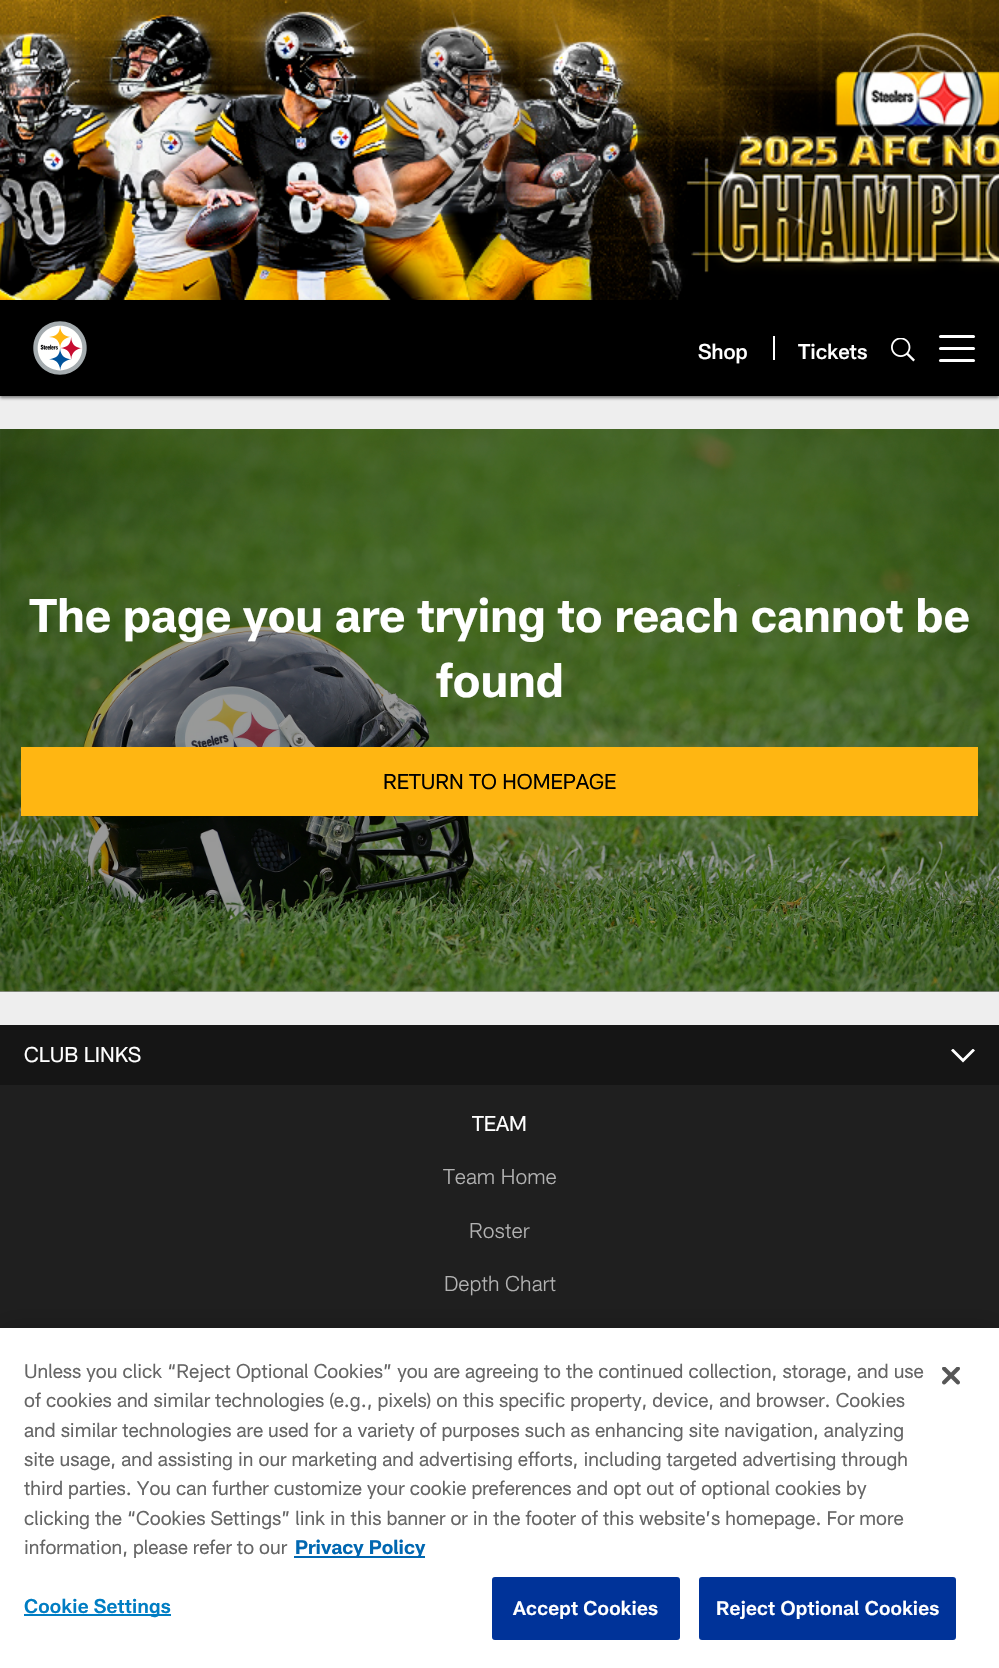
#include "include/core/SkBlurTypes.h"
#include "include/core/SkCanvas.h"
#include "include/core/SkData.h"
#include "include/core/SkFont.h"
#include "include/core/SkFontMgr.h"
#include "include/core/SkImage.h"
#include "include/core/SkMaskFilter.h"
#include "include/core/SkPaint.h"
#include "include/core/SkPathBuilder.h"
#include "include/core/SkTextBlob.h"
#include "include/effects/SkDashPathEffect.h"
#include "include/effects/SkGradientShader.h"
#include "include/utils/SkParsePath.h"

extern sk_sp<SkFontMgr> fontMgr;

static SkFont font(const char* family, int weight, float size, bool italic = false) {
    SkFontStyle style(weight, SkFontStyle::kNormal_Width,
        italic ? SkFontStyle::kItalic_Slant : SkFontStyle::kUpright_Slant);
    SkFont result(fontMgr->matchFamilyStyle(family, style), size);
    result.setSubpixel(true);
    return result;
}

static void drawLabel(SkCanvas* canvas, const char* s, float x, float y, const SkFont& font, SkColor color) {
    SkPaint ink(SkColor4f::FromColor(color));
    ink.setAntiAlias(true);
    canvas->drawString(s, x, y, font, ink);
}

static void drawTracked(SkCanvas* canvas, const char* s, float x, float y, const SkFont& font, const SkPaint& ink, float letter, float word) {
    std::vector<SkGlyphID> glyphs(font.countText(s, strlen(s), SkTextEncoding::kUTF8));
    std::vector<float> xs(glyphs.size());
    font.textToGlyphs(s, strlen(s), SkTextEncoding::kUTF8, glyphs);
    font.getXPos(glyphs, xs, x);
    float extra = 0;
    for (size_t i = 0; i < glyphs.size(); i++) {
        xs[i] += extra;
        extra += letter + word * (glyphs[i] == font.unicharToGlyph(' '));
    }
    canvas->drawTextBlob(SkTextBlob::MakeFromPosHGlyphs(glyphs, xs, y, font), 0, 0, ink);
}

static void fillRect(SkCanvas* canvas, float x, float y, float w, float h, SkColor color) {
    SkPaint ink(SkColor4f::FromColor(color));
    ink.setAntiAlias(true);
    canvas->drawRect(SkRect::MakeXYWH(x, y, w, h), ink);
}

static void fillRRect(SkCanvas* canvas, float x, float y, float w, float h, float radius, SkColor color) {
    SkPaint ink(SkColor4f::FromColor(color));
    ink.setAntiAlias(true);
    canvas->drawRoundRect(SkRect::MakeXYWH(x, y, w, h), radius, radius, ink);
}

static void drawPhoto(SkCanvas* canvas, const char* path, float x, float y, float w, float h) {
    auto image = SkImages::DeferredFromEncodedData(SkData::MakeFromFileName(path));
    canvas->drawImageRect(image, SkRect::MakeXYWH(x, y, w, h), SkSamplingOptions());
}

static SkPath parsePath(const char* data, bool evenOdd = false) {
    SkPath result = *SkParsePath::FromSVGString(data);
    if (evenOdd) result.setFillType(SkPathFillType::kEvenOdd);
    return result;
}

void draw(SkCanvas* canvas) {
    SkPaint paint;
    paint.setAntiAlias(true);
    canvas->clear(0xFFEEEEEE);
    fillRect(canvas, 0, 991, 999, 1, 0xFF8F8F8F);
    drawPhoto(canvas, "assets/img1.png", 0, 0, 999, 300);
    paint.setColor(0x78000000);
    paint.setMaskFilter(SkMaskFilter::MakeBlur(kNormal_SkBlurStyle, 1.5f));
    canvas->drawRect(SkRect::MakeXYWH(0, 302, 999, 96), paint);
    paint.setMaskFilter(nullptr);
    fillRect(canvas, 0, 300, 999, 96, 0xFF000000);
    drawPhoto(canvas, "assets/img2.png", 33, 321, 54, 54);
    SkFont font1 = font("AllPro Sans", 500, 21);
    drawLabel(canvas, "Shop", 698, 359, font1, 0xFFFFFFFF);
    fillRect(canvas, 773, 336, 2, 24, 0xFFFFFFFF);
    drawLabel(canvas, "Tickets", 798, 359, font1, 0xFFFFFFFF);
    drawPhoto(canvas, "assets/img3.png", 891, 338, 24, 24);
    fillRRect(canvas, 939, 347, 36, 3, 1.5f, 0xFFFFFFFF);
    fillRRect(canvas, 939, 335, 36, 3, 1.5f, 0xFFFFFFFF);
    fillRRect(canvas, 939, 359, 36, 3, 1.5f, 0xFFFFFFFF);
    drawPhoto(canvas, "assets/img4.png", 0, 429, 999, 563);
    SkFont font2 = font("AllPro Sans", 700, 46.6f);
    drawLabel(canvas, "The page you are trying to reach cannot be", 29, 632, font2, 0xFFFFFFFF);
    drawLabel(canvas, "found", 436, 697, font2, 0xFFFFFFFF);
    fillRect(canvas, 21, 747, 957, 69, 0xFFFFB612);
    SkFont font3 = font("AllPro Sans", 400, 21);
    drawLabel(canvas, "RETURN TO HOMEPAGE", 383, 789, font3, 0xFF000000);
    fillRect(canvas, 0, 1085, 999, 243, 0xFF1F1F1F);
    fillRect(canvas, 0, 1025, 999, 60, 0xFF151515);
    drawLabel(canvas, "CLUB LINKS", 24, 1062, font3, 0xFFFFFFFF);
    canvas->save();
    canvas->clipRect(SkRect::MakeXYWH(951, 1049, 24, 24));
    paint.setColor(0xFFFFFFFF);
    canvas->drawPath(parsePath("M963 1058.5L973 1048.5L975 1050.5L963 1062.5L951 1050.5L953 1048.5L954 1049.5Z"), paint);
    canvas->restore();
    drawLabel(canvas, "TEAM", 472, 1131, font3, 0xFFFFFFFF);
    SkFont font4 = font("AllPro Sans", 300, 21);
    drawLabel(canvas, "Team Home", 443, 1184, font4, 0xFFB2B2B2);
    drawLabel(canvas, "Roster", 469, 1238, font4, 0xFFB2B2B2);
    drawLabel(canvas, "Depth Chart", 444, 1291, font4, 0xFFB2B2B2);
    paint.setColor(0x33000000);
    paint.setMaskFilter(SkMaskFilter::MakeBlur(kNormal_SkBlurStyle, 13.5f));
    canvas->drawRect(SkRect::MakeXYWH(0, 1328, 999, 340), paint);
    paint.setMaskFilter(nullptr);
    fillRect(canvas, 0, 1328, 999, 340, 0xFFFFFFFF);
    SkFont font5 = font("AllPro Sans", 400, 19.5f);
    drawLabel(canvas, "Unless you click “Reject Optional Cookies” you are agreeing to the continued collection, storage, and use", 24, 1378, font5, 0xFF666666);
    drawLabel(canvas, "of cookies and similar technologies (e.g., pixels) on this specific property, device, and browser. Cookies", 24, 1407, font5, 0xFF666666);
    drawLabel(canvas, "and similar technologies are used for a variety of purposes such as enhancing site navigation, analyzing", 24, 1437, font5, 0xFF666666);
    drawLabel(canvas, "site usage, and assisting in our marketing and advertising efforts, including targeted advertising through", 24, 1466, font5, 0xFF666666);
    drawLabel(canvas, "third parties. You can further customize your cookie preferences and opt out of optional cookies by", 24, 1495, font5, 0xFF666666);
    drawLabel(canvas, "clicking the “Cookies Settings” link in this banner or in the footer of this website’s homepage. For more", 24, 1525, font5, 0xFF666666);
    drawLabel(canvas, "information, please refer to our", 24, 1554, font5, 0xFF666666);
    fillRect(canvas, 294, 1556, 131, 2, 0xFF0067B1);
    SkFont font6 = font("AllPro Sans", 700, 19.5f);
    drawLabel(canvas, "Privacy Policy", 295, 1554, font6, 0xFF0067B1);
    fillRect(canvas, 24, 1614, 147, 2, 0xFF007DC3);
    SkFont font7 = font("AllPro Sans", 600, 19.5f);
    paint.setColor(0xFF007DC3);
    drawTracked(canvas, "Cookie Settings", 24, 1613, font7, paint, 0.2f, 0);
    paint.setColor(0xFF003399);
    canvas->drawRoundRect(SkRect::MakeXYWH(493, 1578, 186, 61), 2, 2, paint);
    paint.setStroke(true);
    paint.setStrokeWidth(2);
    canvas->drawRoundRect(SkRect::MakeXYWH(493, 1578, 186, 61), 2, 2, paint);
    paint.setStroke(false);
    paint.setColor(0xFFFFFFFF);
    drawTracked(canvas, "Accept Cookies", 513, 1615, font7, paint, 0.2f, 0);
    paint.setColor(0xFF003399);
    canvas->drawRoundRect(SkRect::MakeXYWH(700, 1578, 255, 61), 2, 2, paint);
    paint.setStroke(true);
    canvas->drawRoundRect(SkRect::MakeXYWH(700, 1578, 255, 61), 2, 2, paint);
    paint.setStroke(false);
    paint.setColor(0xFFFFFFFF);
    drawTracked(canvas, "Reject Optional Cookies", 716, 1615, font7, paint, 0.2f, 0);
    drawPhoto(canvas, "assets/img5.png", 942, 1367, 18, 18);
}
